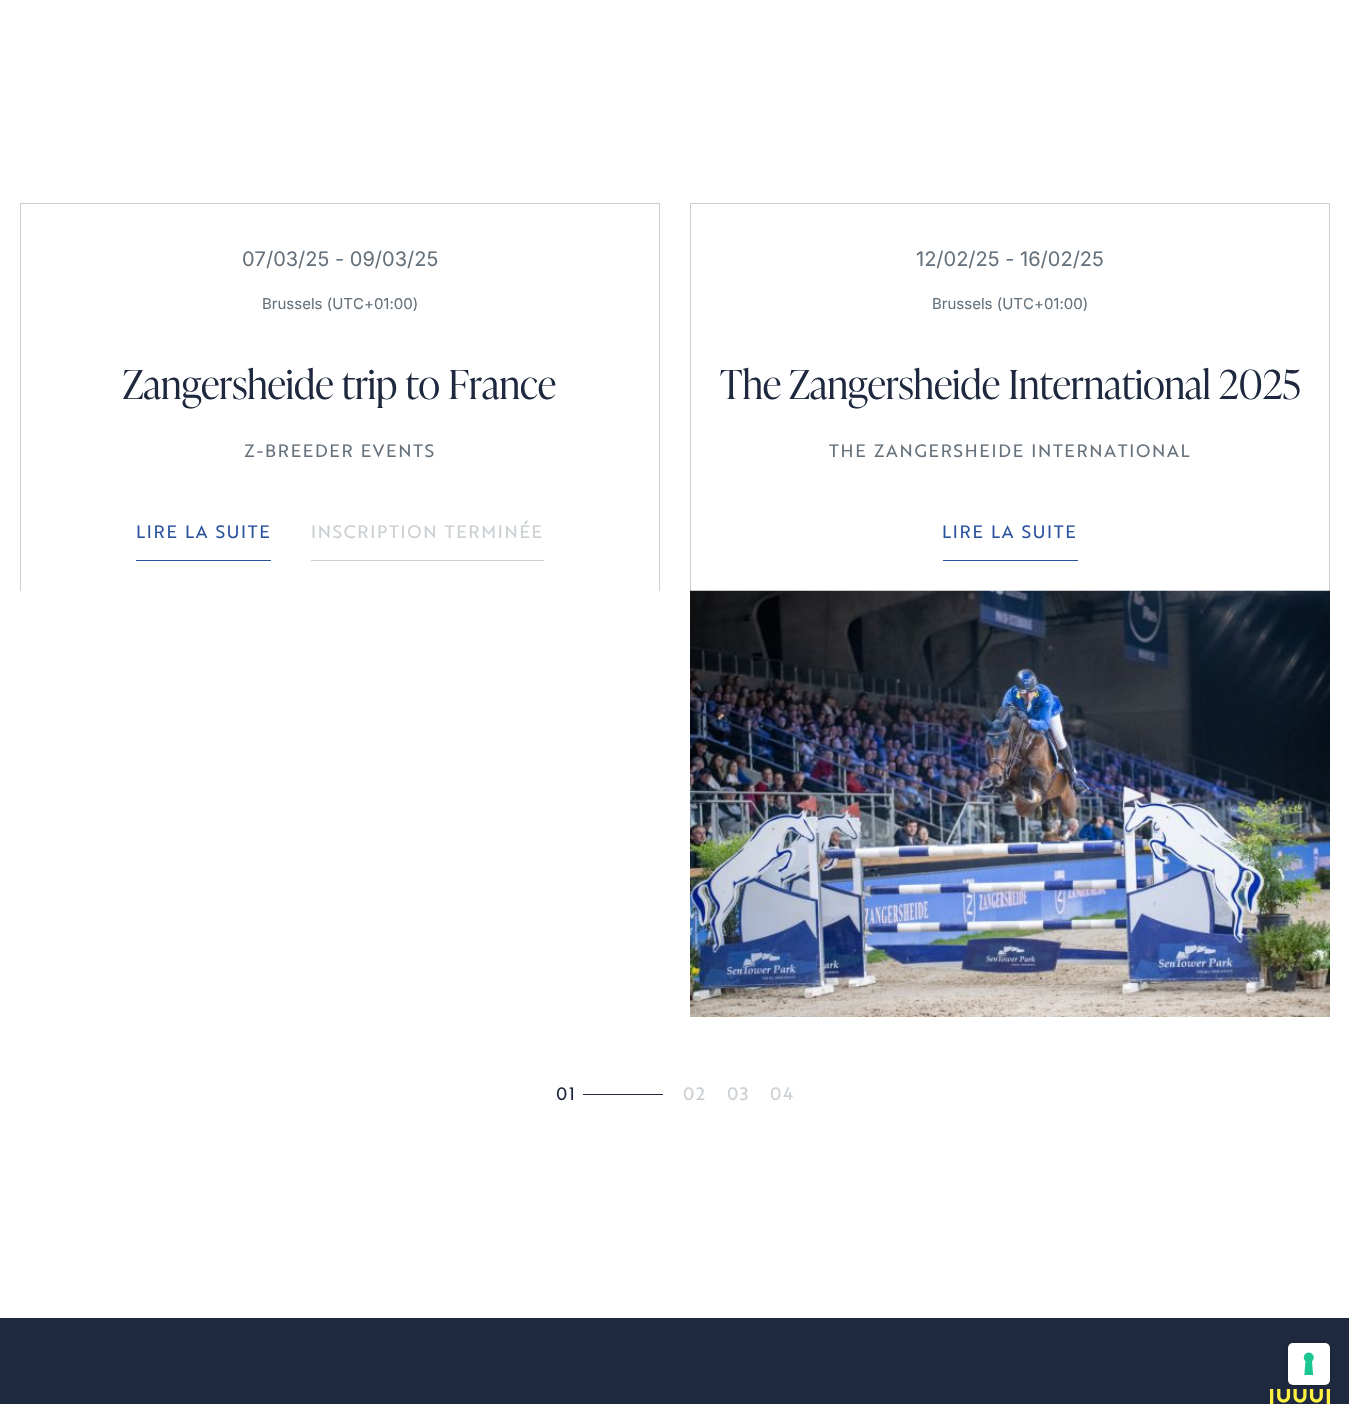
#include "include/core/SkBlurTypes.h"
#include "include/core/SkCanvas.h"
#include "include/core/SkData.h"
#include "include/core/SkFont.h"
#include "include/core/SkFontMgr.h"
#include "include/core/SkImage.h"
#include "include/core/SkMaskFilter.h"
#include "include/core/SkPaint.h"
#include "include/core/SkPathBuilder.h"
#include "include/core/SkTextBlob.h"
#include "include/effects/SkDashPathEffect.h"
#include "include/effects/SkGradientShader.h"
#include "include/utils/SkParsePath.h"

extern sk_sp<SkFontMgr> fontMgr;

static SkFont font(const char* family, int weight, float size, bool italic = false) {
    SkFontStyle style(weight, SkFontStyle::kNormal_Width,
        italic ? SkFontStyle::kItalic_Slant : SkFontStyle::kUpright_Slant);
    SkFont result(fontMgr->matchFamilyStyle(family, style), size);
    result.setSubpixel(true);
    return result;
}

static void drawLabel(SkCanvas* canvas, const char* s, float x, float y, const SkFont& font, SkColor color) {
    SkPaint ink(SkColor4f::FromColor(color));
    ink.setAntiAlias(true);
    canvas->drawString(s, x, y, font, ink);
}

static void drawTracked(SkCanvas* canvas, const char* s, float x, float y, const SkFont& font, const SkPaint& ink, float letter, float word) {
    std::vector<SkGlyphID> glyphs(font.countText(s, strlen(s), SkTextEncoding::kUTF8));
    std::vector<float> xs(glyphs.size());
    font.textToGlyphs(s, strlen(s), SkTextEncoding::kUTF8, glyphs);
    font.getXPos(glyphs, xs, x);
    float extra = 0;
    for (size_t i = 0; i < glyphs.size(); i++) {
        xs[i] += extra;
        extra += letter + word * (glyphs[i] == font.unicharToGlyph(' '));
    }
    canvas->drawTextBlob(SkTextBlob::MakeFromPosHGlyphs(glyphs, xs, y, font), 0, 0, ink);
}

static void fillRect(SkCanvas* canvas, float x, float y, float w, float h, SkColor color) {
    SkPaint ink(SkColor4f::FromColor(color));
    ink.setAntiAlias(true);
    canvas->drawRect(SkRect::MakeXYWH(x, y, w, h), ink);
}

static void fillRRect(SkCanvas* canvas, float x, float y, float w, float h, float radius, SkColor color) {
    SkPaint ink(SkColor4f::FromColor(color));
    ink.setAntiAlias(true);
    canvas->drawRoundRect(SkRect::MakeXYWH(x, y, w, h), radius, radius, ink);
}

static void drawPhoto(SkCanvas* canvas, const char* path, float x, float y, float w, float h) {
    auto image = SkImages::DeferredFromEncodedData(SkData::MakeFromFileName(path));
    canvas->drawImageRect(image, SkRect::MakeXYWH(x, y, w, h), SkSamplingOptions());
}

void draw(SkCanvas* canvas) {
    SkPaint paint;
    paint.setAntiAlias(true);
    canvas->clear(0xFFFFFFFF);
    fillRect(canvas, 20, 203, 640, 1, 0xFFC9CFD2);
    fillRect(canvas, 659, 203, 1, 388, 0xFFC9CFD2);
    fillRect(canvas, 20, 203, 1, 388, 0xFFC9CFD2);
    SkFont font1 = font("Inter", 400, 20);
    drawLabel(canvas, "07/03/25 - 09/03/25", 242, 266, font1, 0xFF65727D);
    SkFont font2 = font("Inter", 400, 15);
    drawLabel(canvas, "Brussels (UTC+01:00)", 262, 309, font2, 0xFF65727D);
    SkFont font3 = font("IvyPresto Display", 300, 40);
    drawLabel(canvas, "Zangersheide trip to France", 123, 399, font3, 0xFF1E283E);
    SkFont font4 = font("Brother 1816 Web", 400, 17.5f);
    paint.setColor(0xFF65727D);
    drawTracked(canvas, "Z-BREEDER EVENTS", 244, 457, font4, paint, 1.75f, 0);
    fillRect(canvas, 136, 560, 135, 1, 0xFF2A539F);
    paint.setColor(0xFF2A539F);
    drawTracked(canvas, "LIRE LA SUITE", 136, 538, font4, paint, 1.75f, 0);
    fillRect(canvas, 311, 560, 233, 1, 0xFFC9CFD2);
    paint.setColor(0xFFC9CFD2);
    drawTracked(canvas, "INSCRIPTION TERMINÉE", 311, 538, font4, paint, 1.75f, 0);
    fillRect(canvas, 690, 203, 640, 1, 0xFFC9CFD2);
    fillRect(canvas, 1329, 203, 1, 388, 0xFFC9CFD2);
    fillRect(canvas, 690, 203, 1, 388, 0xFFC9CFD2);
    drawLabel(canvas, "12/02/25 - 16/02/25", 916, 266, font1, 0xFF65727D);
    drawLabel(canvas, "Brussels (UTC+01:00)", 932, 309, font2, 0xFF65727D);
    drawLabel(canvas, "The Zangersheide International 2025", 720, 399, font3, 0xFF1E283E);
    paint.setColor(0xFF65727D);
    drawTracked(canvas, "THE ZANGERSHEIDE INTERNATIONAL", 829, 457, font4, paint, 1.75f, 0);
    fillRect(canvas, 943, 560, 135, 1, 0xFF2A539F);
    paint.setColor(0xFF2A539F);
    drawTracked(canvas, "LIRE LA SUITE", 942, 538, font4, paint, 1.75f, 0);
    drawPhoto(canvas, "assets/img1.png", 690, 590, 640, 427);
    paint.setColor(0xFF1E283E);
    drawTracked(canvas, "01", 556, 1100, font4, paint, 1.75f, 0);
    fillRect(canvas, 583, 1094, 80, 1, 0xFF222D39);
    paint.setColor(0xFFC9CFD2);
    drawTracked(canvas, "02", 683, 1100, font4, paint, 1.75f, 0);
    drawTracked(canvas, "03", 727, 1100, font4, paint, 1.75f, 0);
    drawTracked(canvas, "04", 770, 1100, font4, paint, 1.75f, 0);
    fillRect(canvas, 0, 1318, 1349, 86, 0xFF1E283E);
    drawPhoto(canvas, "assets/img2.png", 1270, 1389, 60, 15);
    paint.setStroke(true);
    paint.setStrokeWidth(1);
    paint.setColor(0xFF1A2235);
    canvas->drawRoundRect(SkRect::MakeXYWH(1286.5f, 1341.5f, 44, 44), 5.5f, 5.5f, paint);
    fillRRect(canvas, 1288, 1343, 42, 42, 5, 0xFFFFFFFF);
    drawPhoto(canvas, "assets/img3.png", 1303, 1352, 11, 23);
}
